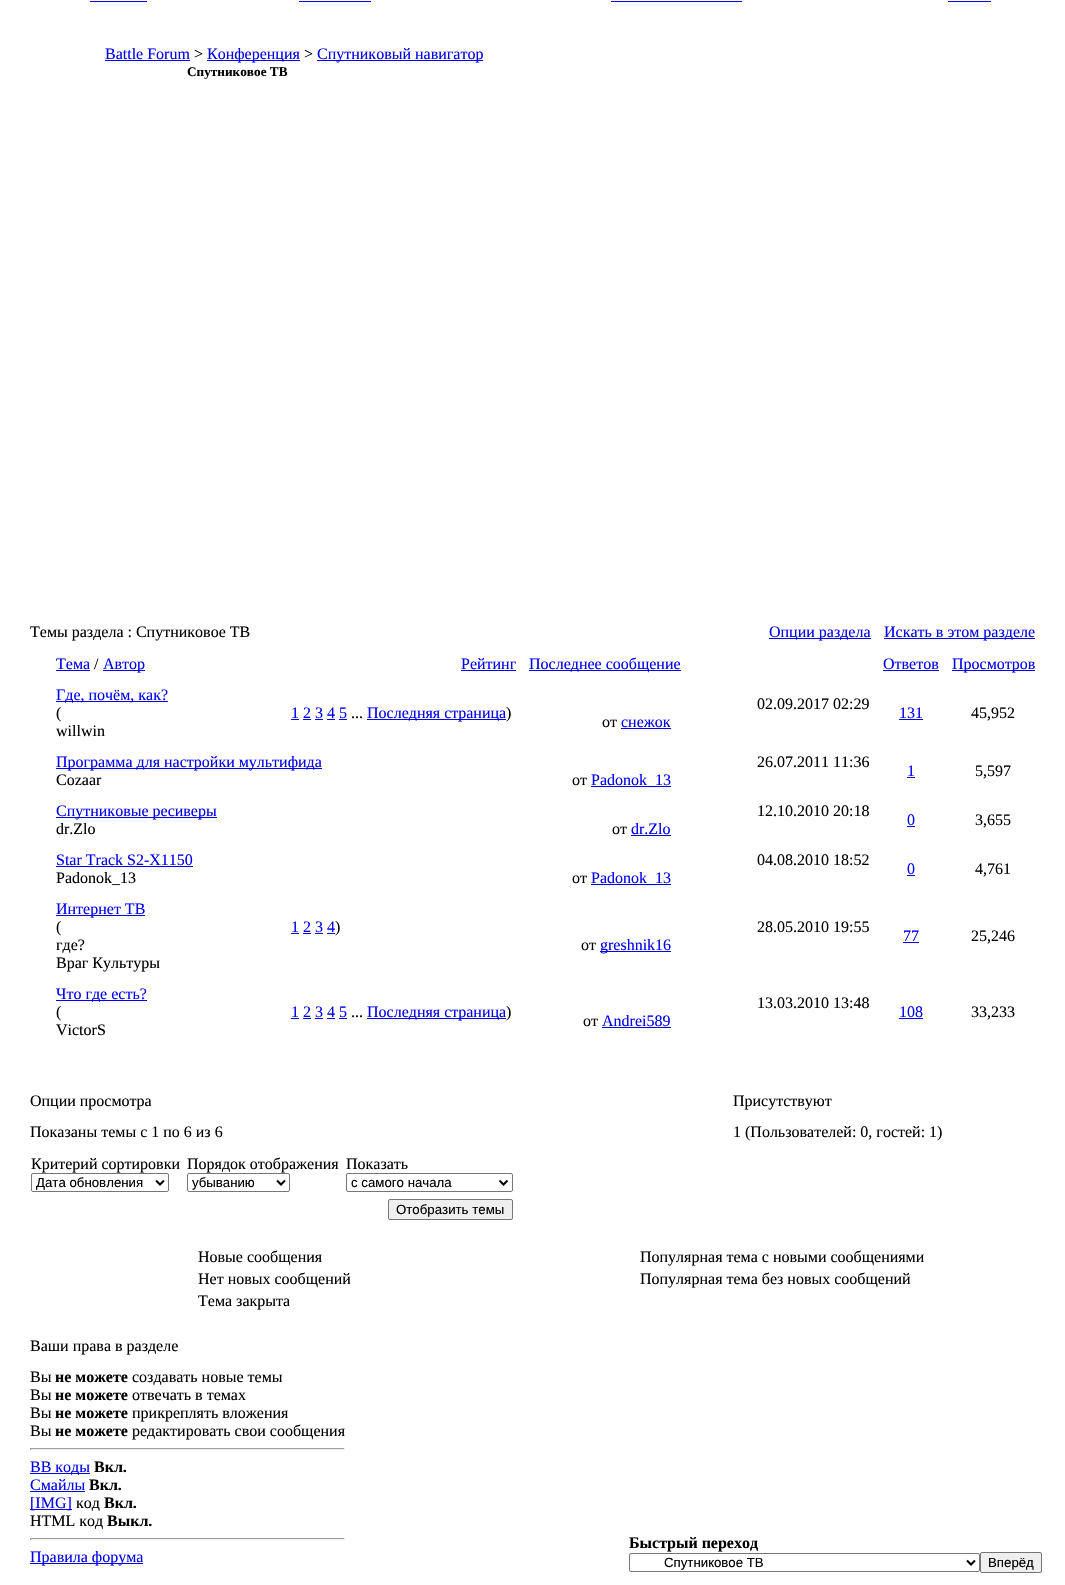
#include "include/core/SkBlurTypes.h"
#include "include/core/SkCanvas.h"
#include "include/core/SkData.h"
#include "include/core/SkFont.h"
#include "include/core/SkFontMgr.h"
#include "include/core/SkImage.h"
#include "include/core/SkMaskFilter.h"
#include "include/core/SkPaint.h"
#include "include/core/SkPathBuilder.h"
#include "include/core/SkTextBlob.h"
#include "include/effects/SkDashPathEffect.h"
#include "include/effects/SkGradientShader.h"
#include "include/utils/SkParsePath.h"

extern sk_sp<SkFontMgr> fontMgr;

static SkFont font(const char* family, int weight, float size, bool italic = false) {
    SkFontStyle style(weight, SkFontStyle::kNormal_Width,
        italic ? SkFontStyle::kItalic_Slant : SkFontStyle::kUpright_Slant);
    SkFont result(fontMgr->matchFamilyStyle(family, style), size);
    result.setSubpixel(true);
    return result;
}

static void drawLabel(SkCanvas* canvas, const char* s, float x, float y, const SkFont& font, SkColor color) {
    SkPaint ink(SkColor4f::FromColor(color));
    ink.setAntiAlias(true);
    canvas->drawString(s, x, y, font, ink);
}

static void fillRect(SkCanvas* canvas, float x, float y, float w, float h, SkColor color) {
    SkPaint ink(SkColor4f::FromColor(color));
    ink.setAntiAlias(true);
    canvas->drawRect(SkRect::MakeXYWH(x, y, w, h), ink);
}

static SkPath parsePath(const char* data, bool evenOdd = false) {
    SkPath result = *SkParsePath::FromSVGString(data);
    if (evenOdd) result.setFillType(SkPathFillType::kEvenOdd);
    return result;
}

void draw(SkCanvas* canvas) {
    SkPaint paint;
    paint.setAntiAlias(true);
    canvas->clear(0xFFFFFFFF);
    fillRect(canvas, 90, 1, 57, 1, 0xFF0000EE);
    fillRect(canvas, 299, 1, 72, 1, 0xFF0000EE);
    fillRect(canvas, 611, 1, 131, 1, 0xFF0000EE);
    fillRect(canvas, 948, 1, 43, 1, 0xFF0000EE);
    SkFont font1 = font("Liberation Serif", 400, 16);
    drawLabel(canvas, "Battle Forum", 105, 59, font1, 0xFF0000EE);
    fillRect(canvas, 105, 60, 85, 1, 0xFF0000EE);
    drawLabel(canvas, ">", 194, 59, font1, 0xFF000000);
    fillRect(canvas, 207, 60, 93, 1, 0xFF0000EE);
    drawLabel(canvas, "Конференция", 207, 59, font1, 0xFF0000EE);
    drawLabel(canvas, ">", 304, 59, font1, 0xFF000000);
    fillRect(canvas, 317, 60, 166, 1, 0xFF0000EE);
    drawLabel(canvas, "Спутниковый навигатор", 317, 59, font1, 0xFF0000EE);
    SkFont font2 = font("Liberation Serif", 700, 13.25f);
    drawLabel(canvas, "Спутниковое ТВ", 187, 76, font2, 0xFF000000);
    drawLabel(canvas, "Темы раздела : Спутниковое ТВ", 30, 637, font1, 0xFF000000);
    fillRect(canvas, 769, 638, 102, 1, 0xFF0000EE);
    drawLabel(canvas, "Опции раздела", 769, 637, font1, 0xFF0000EE);
    fillRect(canvas, 884, 638, 151, 1, 0xFF0000EE);
    drawLabel(canvas, "Искать в этом разделе", 884, 637, font1, 0xFF0000EE);
    drawLabel(canvas, "Тема", 56, 669, font1, 0xFF0000EE);
    fillRect(canvas, 56, 670, 34, 1, 0xFF0000EE);
    drawLabel(canvas, "/", 94, 669, font1, 0xFF000000);
    fillRect(canvas, 103, 670, 42, 1, 0xFF0000EE);
    drawLabel(canvas, "Автор", 103, 669, font1, 0xFF0000EE);
    drawLabel(canvas, "Рейтинг", 461, 669, font1, 0xFF0000EE);
    fillRect(canvas, 461, 670, 55, 1, 0xFF0000EE);
    fillRect(canvas, 529, 670, 152, 1, 0xFF0000EE);
    drawLabel(canvas, "Последнее сообщение", 529, 669, font1, 0xFF0000EE);
    drawLabel(canvas, "Ответов", 883, 669, font1, 0xFF0000EE);
    fillRect(canvas, 883, 670, 56, 1, 0xFF0000EE);
    fillRect(canvas, 952, 670, 83, 1, 0xFF0000EE);
    drawLabel(canvas, "Просмотров", 952, 669, font1, 0xFF0000EE);
    fillRect(canvas, 56, 701, 112, 1, 0xFF0000EE);
    drawLabel(canvas, "Где, почём, как?", 56, 700, font1, 0xFF0000EE);
    drawLabel(canvas, "(", 56, 718, font1, 0xFF000000);
    drawLabel(canvas, "1 2 3 4 5", 291, 718, font1, 0xFF0000EE);
    fillRect(canvas, 291, 719, 8, 1, 0xFF0000EE);
    fillRect(canvas, 303, 719, 8, 1, 0xFF0000EE);
    fillRect(canvas, 315, 719, 8, 1, 0xFF0000EE);
    fillRect(canvas, 327, 719, 8, 1, 0xFF0000EE);
    drawLabel(canvas, "...", 351, 718, font1, 0xFF000000);
    fillRect(canvas, 339, 719, 8, 1, 0xFF0000EE);
    fillRect(canvas, 367, 719, 139, 1, 0xFF0000EE);
    drawLabel(canvas, "Последняя страница", 367, 718, font1, 0xFF0000EE);
    drawLabel(canvas, ")", 506, 718, font1, 0xFF000000);
    drawLabel(canvas, "willwin", 56, 736, font1, 0xFF000000);
    drawLabel(canvas, "02.09.2017 02:29", 757, 709, font1, 0xFF000000);
    drawLabel(canvas, "от", 602, 727, font1, 0xFF000000);
    drawLabel(canvas, "снежок", 621, 727, font1, 0xFF0000EE);
    fillRect(canvas, 621, 728, 50, 1, 0xFF0000EE);
    drawLabel(canvas, "131", 899, 718, font1, 0xFF0000EE);
    fillRect(canvas, 899, 719, 24, 1, 0xFF0000EE);
    drawLabel(canvas, "45,952", 971, 718, font1, 0xFF000000);
    fillRect(canvas, 56, 768, 266, 1, 0xFF0000EE);
    drawLabel(canvas, "Программа для настройки мультифида", 56, 767, font1, 0xFF0000EE);
    drawLabel(canvas, "Cozaar", 56, 785, font1, 0xFF000000);
    drawLabel(canvas, "26.07.2011 11:36", 757, 767, font1, 0xFF000000);
    drawLabel(canvas, "от", 572, 785, font1, 0xFF000000);
    fillRect(canvas, 591, 786, 80, 1, 0xFF0000EE);
    drawLabel(canvas, "Padonok_13", 591, 785, font1, 0xFF0000EE);
    drawLabel(canvas, "1", 907, 776, font1, 0xFF0000EE);
    fillRect(canvas, 907, 777, 8, 1, 0xFF0000EE);
    drawLabel(canvas, "5,597", 975, 776, font1, 0xFF000000);
    fillRect(canvas, 56, 817, 161, 1, 0xFF0000EE);
    drawLabel(canvas, "Спутниковые ресиверы", 56, 816, font1, 0xFF0000EE);
    drawLabel(canvas, "dr.Zlo", 56, 834, font1, 0xFF000000);
    drawLabel(canvas, "12.10.2010 20:18", 757, 816, font1, 0xFF000000);
    drawLabel(canvas, "от", 612, 834, font1, 0xFF000000);
    drawLabel(canvas, "dr.Zlo", 631, 834, font1, 0xFF0000EE);
    fillRect(canvas, 631, 835, 40, 1, 0xFF0000EE);
    drawLabel(canvas, "0", 907, 825, font1, 0xFF0000EE);
    fillRect(canvas, 907, 826, 8, 1, 0xFF0000EE);
    drawLabel(canvas, "3,655", 975, 825, font1, 0xFF000000);
    drawLabel(canvas, "Star Track S2-X1150", 56, 865, font1, 0xFF0000EE);
    fillRect(canvas, 56, 866, 137, 1, 0xFF0000EE);
    drawLabel(canvas, "Padonok_13", 56, 883, font1, 0xFF000000);
    drawLabel(canvas, "04.08.2010 18:52", 757, 865, font1, 0xFF000000);
    drawLabel(canvas, "от", 572, 883, font1, 0xFF000000);
    fillRect(canvas, 591, 884, 80, 1, 0xFF0000EE);
    drawLabel(canvas, "Padonok_13", 591, 883, font1, 0xFF0000EE);
    drawLabel(canvas, "0", 907, 874, font1, 0xFF0000EE);
    fillRect(canvas, 907, 875, 8, 1, 0xFF0000EE);
    drawLabel(canvas, "4,761", 975, 874, font1, 0xFF000000);
    fillRect(canvas, 56, 915, 89, 1, 0xFF0000EE);
    drawLabel(canvas, "Интернет ТВ", 56, 914, font1, 0xFF0000EE);
    drawLabel(canvas, "(", 56, 932, font1, 0xFF000000);
    drawLabel(canvas, "1 2 3 4", 291, 932, font1, 0xFF0000EE);
    fillRect(canvas, 291, 933, 8, 1, 0xFF0000EE);
    fillRect(canvas, 303, 933, 8, 1, 0xFF0000EE);
    fillRect(canvas, 315, 933, 8, 1, 0xFF0000EE);
    drawLabel(canvas, ")", 335, 932, font1, 0xFF000000);
    fillRect(canvas, 327, 933, 8, 1, 0xFF0000EE);
    drawLabel(canvas, "где?", 56, 950, font1, 0xFF000000);
    drawLabel(canvas, "Враг Культуры", 56, 968, font1, 0xFF000000);
    drawLabel(canvas, "28.05.2010 19:55", 757, 932, font1, 0xFF000000);
    drawLabel(canvas, "от", 581, 950, font1, 0xFF000000);
    fillRect(canvas, 600, 951, 71, 1, 0xFF0000EE);
    drawLabel(canvas, "greshnik16", 600, 950, font1, 0xFF0000EE);
    drawLabel(canvas, "77", 903, 941, font1, 0xFF0000EE);
    fillRect(canvas, 903, 942, 16, 1, 0xFF0000EE);
    drawLabel(canvas, "25,246", 971, 941, font1, 0xFF000000);
    fillRect(canvas, 56, 1000, 91, 1, 0xFF0000EE);
    drawLabel(canvas, "Что где есть?", 56, 999, font1, 0xFF0000EE);
    drawLabel(canvas, "(", 56, 1017, font1, 0xFF000000);
    drawLabel(canvas, "1 2 3 4 5", 291, 1017, font1, 0xFF0000EE);
    fillRect(canvas, 291, 1018, 8, 1, 0xFF0000EE);
    fillRect(canvas, 303, 1018, 8, 1, 0xFF0000EE);
    fillRect(canvas, 315, 1018, 8, 1, 0xFF0000EE);
    fillRect(canvas, 327, 1018, 8, 1, 0xFF0000EE);
    drawLabel(canvas, "...", 351, 1017, font1, 0xFF000000);
    fillRect(canvas, 339, 1018, 8, 1, 0xFF0000EE);
    fillRect(canvas, 367, 1018, 139, 1, 0xFF0000EE);
    drawLabel(canvas, "Последняя страница", 367, 1017, font1, 0xFF0000EE);
    drawLabel(canvas, ")", 506, 1017, font1, 0xFF000000);
    drawLabel(canvas, "VictorS", 56, 1035, font1, 0xFF000000);
    drawLabel(canvas, "13.03.2010 13:48", 757, 1008, font1, 0xFF000000);
    drawLabel(canvas, "от", 583, 1026, font1, 0xFF000000);
    drawLabel(canvas, "Andrei589", 602, 1026, font1, 0xFF0000EE);
    fillRect(canvas, 602, 1027, 69, 1, 0xFF0000EE);
    drawLabel(canvas, "108", 899, 1017, font1, 0xFF0000EE);
    fillRect(canvas, 899, 1018, 24, 1, 0xFF0000EE);
    drawLabel(canvas, "33,233", 971, 1017, font1, 0xFF000000);
    drawLabel(canvas, "Опции просмотра", 30, 1106, font1, 0xFF000000);
    drawLabel(canvas, "Присутствуют", 733, 1106, font1, 0xFF000000);
    drawLabel(canvas, "Показаны темы с 1 по 6 из 6", 30, 1137, font1, 0xFF000000);
    drawLabel(canvas, "1 (Пользователей: 0, гостей: 1)", 733, 1137, font1, 0xFF000000);
    drawLabel(canvas, "Критерий сортировки", 31, 1169, font1, 0xFF000000);
    paint.setStroke(true);
    paint.setStrokeWidth(1);
    paint.setColor(0xFF767676);
    canvas->drawRoundRect(SkRect::MakeXYWH(31.5f, 1173.5f, 137, 18), 1.5f, 1.5f, paint);
    paint.setStrokeWidth(2);
    paint.setColor(0xFF000000);
    canvas->drawPath(parsePath("M156 1180.5L160 1184.5L164 1180.5"), paint);
    SkFont font3 = font("Liberation Sans", 400, 13.25f);
    drawLabel(canvas, "Дата обновления", 36, 1187, font3, 0xFF000000);
    drawLabel(canvas, "Порядок отображения", 187, 1169, font1, 0xFF000000);
    paint.setStrokeWidth(1);
    paint.setColor(0xFF767676);
    canvas->drawRoundRect(SkRect::MakeXYWH(187.5f, 1173.5f, 102, 18), 1.5f, 1.5f, paint);
    paint.setStrokeWidth(2);
    paint.setColor(0xFF000000);
    canvas->drawPath(parsePath("M277 1180.5L281 1184.5L285 1180.5"), paint);
    drawLabel(canvas, "убыванию", 192, 1187, font3, 0xFF000000);
    drawLabel(canvas, "Показать", 346, 1169, font1, 0xFF000000);
    paint.setStrokeWidth(1);
    paint.setColor(0xFF767676);
    canvas->drawRoundRect(SkRect::MakeXYWH(346.5f, 1173.5f, 166, 18), 1.5f, 1.5f, paint);
    paint.setStrokeWidth(2);
    paint.setColor(0xFF000000);
    canvas->drawPath(parsePath("M499.5 1180.5L503.5 1184.5L507.5 1180.5"), paint);
    drawLabel(canvas, "с самого начала", 351, 1187, font3, 0xFF000000);
    paint.setStroke(false);
    paint.setColor(0xFFEFEFEF);
    canvas->drawRoundRect(SkRect::MakeXYWH(388.5f, 1199.5f, 124, 20), 1.5f, 1.5f, paint);
    paint.setStroke(true);
    paint.setStrokeWidth(1);
    paint.setColor(0xFF767676);
    canvas->drawRoundRect(SkRect::MakeXYWH(388.5f, 1199.5f, 124, 20), 1.5f, 1.5f, paint);
    drawLabel(canvas, "Отобразить темы", 396, 1214, font3, 0xFF000000);
    drawLabel(canvas, "Новые сообщения", 198, 1262, font1, 0xFF000000);
    drawLabel(canvas, "Популярная тема с новыми сообщениями", 640, 1262, font1, 0xFF000000);
    drawLabel(canvas, "Нет новых сообщений", 198, 1284, font1, 0xFF000000);
    drawLabel(canvas, "Популярная тема без новых сообщений", 640, 1284, font1, 0xFF000000);
    drawLabel(canvas, "Тема закрыта", 198, 1306, font1, 0xFF000000);
    drawLabel(canvas, "Ваши права в разделе", 30, 1351, font1, 0xFF000000);
    drawLabel(canvas, "Вы", 30, 1382, font1, 0xFF000000);
    SkFont font4 = font("Liberation Serif", 700, 16);
    drawLabel(canvas, "не можете", 55, 1382, font4, 0xFF000000);
    drawLabel(canvas, "создавать новые темы", 132, 1382, font1, 0xFF000000);
    drawLabel(canvas, "Вы", 30, 1400, font1, 0xFF000000);
    drawLabel(canvas, "не можете", 55, 1400, font4, 0xFF000000);
    drawLabel(canvas, "отвечать в темах", 132, 1400, font1, 0xFF000000);
    drawLabel(canvas, "Вы", 30, 1418, font1, 0xFF000000);
    drawLabel(canvas, "не можете", 55, 1418, font4, 0xFF000000);
    drawLabel(canvas, "прикреплять вложения", 132, 1418, font1, 0xFF000000);
    drawLabel(canvas, "Вы", 30, 1436, font1, 0xFF000000);
    drawLabel(canvas, "не можете", 55, 1436, font4, 0xFF000000);
    drawLabel(canvas, "редактировать свои сообщения", 132, 1436, font1, 0xFF000000);
    fillRect(canvas, 30, 1448, 315, 1, 0xFF9F9F9F);
    fillRect(canvas, 344, 1448, 1, 2, 0xFFEEEEEE);
    fillRect(canvas, 30, 1449, 315, 1, 0xFFEEEEEE);
    fillRect(canvas, 30, 1448, 1, 2, 0xFF9F9F9F);
    fillRect(canvas, 30, 1473, 60, 1, 0xFF0000EE);
    drawLabel(canvas, "BB коды", 30, 1472, font1, 0xFF0000EE);
    drawLabel(canvas, "Вкл.", 94, 1472, font4, 0xFF000000);
    drawLabel(canvas, "Смайлы", 30, 1490, font1, 0xFF0000EE);
    fillRect(canvas, 30, 1491, 55, 1, 0xFF0000EE);
    drawLabel(canvas, "Вкл.", 89, 1490, font4, 0xFF000000);
    fillRect(canvas, 30, 1509, 42, 1, 0xFF0000EE);
    drawLabel(canvas, "[IMG]", 30, 1508, font1, 0xFF0000EE);
    drawLabel(canvas, "код", 76, 1508, font1, 0xFF000000);
    drawLabel(canvas, "Вкл.", 104, 1508, font4, 0xFF000000);
    drawLabel(canvas, "HTML код", 30, 1526, font1, 0xFF000000);
    drawLabel(canvas, "Выкл.", 107, 1526, font4, 0xFF000000);
    fillRect(canvas, 30, 1538, 315, 1, 0xFF9F9F9F);
    fillRect(canvas, 344, 1538, 1, 2, 0xFFEEEEEE);
    fillRect(canvas, 30, 1539, 315, 1, 0xFFEEEEEE);
    fillRect(canvas, 30, 1538, 1, 2, 0xFF9F9F9F);
    fillRect(canvas, 30, 1563, 113, 1, 0xFF0000EE);
    drawLabel(canvas, "Правила форума", 30, 1562, font1, 0xFF0000EE);
    drawLabel(canvas, "Быстрый переход", 629, 1548, font4, 0xFF000000);
    canvas->drawRoundRect(SkRect::MakeXYWH(629.5f, 1553.5f, 350, 18), 1.5f, 1.5f, paint);
    paint.setStrokeWidth(2);
    paint.setColor(0xFF000000);
    canvas->drawPath(parsePath("M967 1560.5L971 1564.5L975 1560.5"), paint);
    drawLabel(canvas, "Спутниковое ТВ", 664, 1567, font3, 0xFF000000);
    paint.setStroke(false);
    paint.setColor(0xFFEFEFEF);
    canvas->drawRoundRect(SkRect::MakeXYWH(980.5f, 1552.5f, 61, 20), 1.5f, 1.5f, paint);
    paint.setStroke(true);
    paint.setStrokeWidth(1);
    paint.setColor(0xFF767676);
    canvas->drawRoundRect(SkRect::MakeXYWH(980.5f, 1552.5f, 61, 20), 1.5f, 1.5f, paint);
    drawLabel(canvas, "Вперёд", 988, 1567, font3, 0xFF000000);
}
